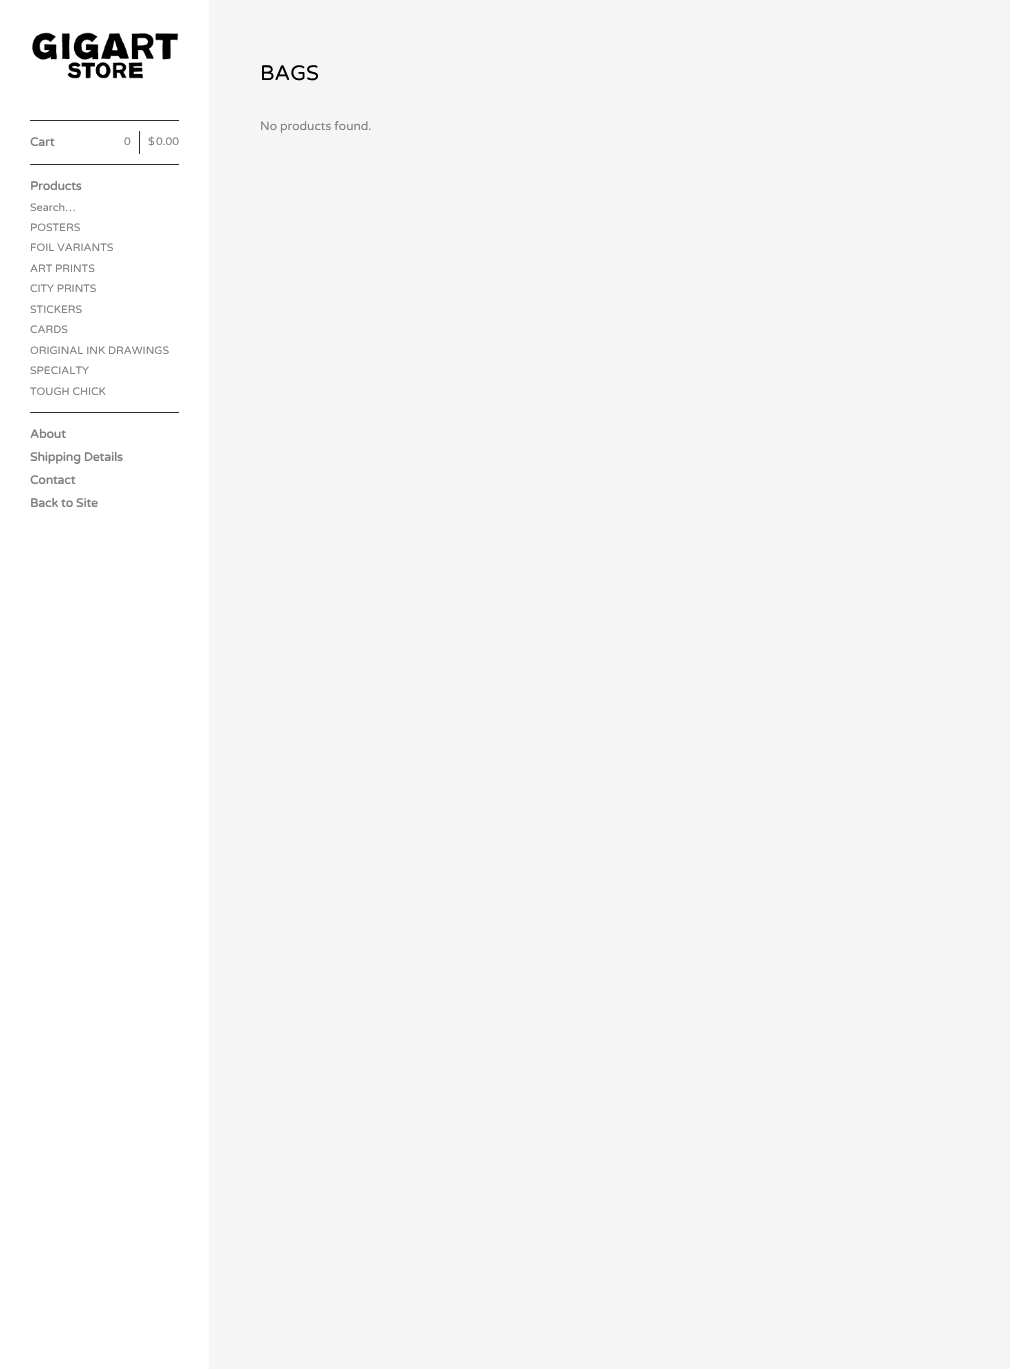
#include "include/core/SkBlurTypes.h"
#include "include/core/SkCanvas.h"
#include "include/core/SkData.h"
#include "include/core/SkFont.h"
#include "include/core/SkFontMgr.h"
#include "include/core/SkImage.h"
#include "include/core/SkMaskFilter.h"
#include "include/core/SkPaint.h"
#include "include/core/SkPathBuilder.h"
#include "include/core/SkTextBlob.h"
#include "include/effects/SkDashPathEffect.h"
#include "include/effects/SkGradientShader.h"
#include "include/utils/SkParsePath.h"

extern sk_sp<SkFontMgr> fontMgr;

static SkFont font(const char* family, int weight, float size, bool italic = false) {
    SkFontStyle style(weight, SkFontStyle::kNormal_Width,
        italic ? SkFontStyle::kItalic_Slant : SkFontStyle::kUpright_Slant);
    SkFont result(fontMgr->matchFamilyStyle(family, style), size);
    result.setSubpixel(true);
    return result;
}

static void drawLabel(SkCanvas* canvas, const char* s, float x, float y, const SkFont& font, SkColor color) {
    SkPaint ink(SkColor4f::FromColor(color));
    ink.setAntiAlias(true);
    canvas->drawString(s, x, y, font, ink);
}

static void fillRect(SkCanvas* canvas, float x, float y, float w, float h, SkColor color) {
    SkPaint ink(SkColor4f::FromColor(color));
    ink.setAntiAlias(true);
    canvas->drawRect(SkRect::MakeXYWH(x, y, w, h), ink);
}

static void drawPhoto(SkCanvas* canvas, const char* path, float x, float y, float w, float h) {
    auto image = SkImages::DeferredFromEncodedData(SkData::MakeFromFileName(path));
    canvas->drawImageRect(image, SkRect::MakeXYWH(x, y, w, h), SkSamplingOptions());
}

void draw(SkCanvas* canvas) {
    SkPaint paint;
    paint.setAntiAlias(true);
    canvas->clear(0xFFF5F5F5);
    SkFont font1 = font("Varela Round", 400, 21);
    drawLabel(canvas, "BAGS", 260, 80, font1, 0xFF000000);
    SkFont font2 = font("Varela Round", 400, 12);
    drawLabel(canvas, "No products found.", 260, 130, font2, 0xFF808080);
    fillRect(canvas, 0, 0, 209, 1369, 0xFFFFFFFF);
    drawPhoto(canvas, "assets/img1.png", 32, 32, 147, 47);
    fillRect(canvas, 30, 120, 149, 1, 0xFF2B2B2B);
    SkFont font3 = font("Varela Round", 700, 12);
    drawLabel(canvas, "Cart", 30, 146, font3, 0xFF808080);
    SkFont font4 = font("Varela Round", 400, 10.75f);
    drawLabel(canvas, "0", 124, 145, font4, 0xFF808080);
    fillRect(canvas, 139, 131, 1, 23, 0xFF2B2B2B);
    drawLabel(canvas, "$", 148, 145, font4, 0xFF808080);
    drawLabel(canvas, "0.00", 156, 145, font4, 0xFF808080);
    fillRect(canvas, 30, 164, 149, 1, 0xFF2B2B2B);
    drawLabel(canvas, "Products", 30, 190, font3, 0xFF808080);
    drawLabel(canvas, "Search…", 30, 211, font4, 0xFF808080);
    drawLabel(canvas, "POSTERS", 30, 231, font4, 0xFF808080);
    drawLabel(canvas, "FOIL VARIANTS", 30, 251, font4, 0xFF808080);
    drawLabel(canvas, "ART PRINTS", 30, 272, font4, 0xFF808080);
    drawLabel(canvas, "CITY PRINTS", 30, 292, font4, 0xFF808080);
    drawLabel(canvas, "STICKERS", 30, 313, font4, 0xFF808080);
    drawLabel(canvas, "CARDS", 30, 333, font4, 0xFF808080);
    drawLabel(canvas, "ORIGINAL INK DRAWINGS", 30, 354, font4, 0xFF808080);
    drawLabel(canvas, "SPECIALTY", 30, 374, font4, 0xFF808080);
    drawLabel(canvas, "TOUGH CHICK", 30, 395, font4, 0xFF808080);
    fillRect(canvas, 30, 412, 149, 1, 0xFF2B2B2B);
    drawLabel(canvas, "About", 30, 438, font3, 0xFF808080);
    drawLabel(canvas, "Shipping Details", 30, 461, font3, 0xFF808080);
    drawLabel(canvas, "Contact", 30, 484, font3, 0xFF808080);
    drawLabel(canvas, "Back to Site", 30, 507, font3, 0xFF808080);
}
